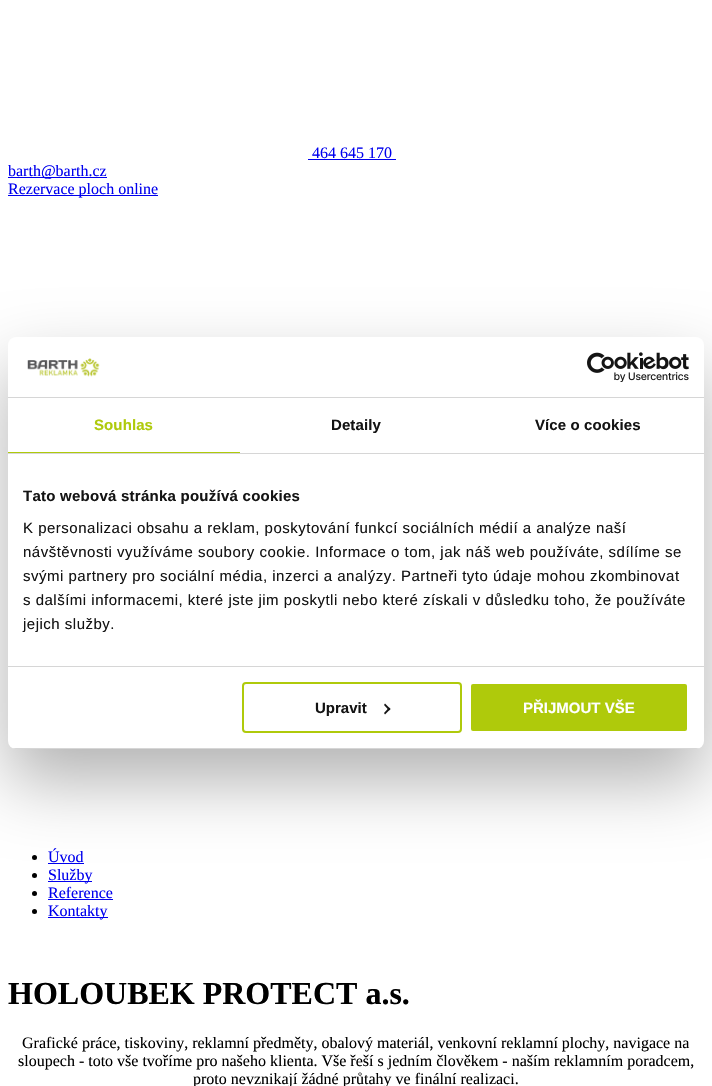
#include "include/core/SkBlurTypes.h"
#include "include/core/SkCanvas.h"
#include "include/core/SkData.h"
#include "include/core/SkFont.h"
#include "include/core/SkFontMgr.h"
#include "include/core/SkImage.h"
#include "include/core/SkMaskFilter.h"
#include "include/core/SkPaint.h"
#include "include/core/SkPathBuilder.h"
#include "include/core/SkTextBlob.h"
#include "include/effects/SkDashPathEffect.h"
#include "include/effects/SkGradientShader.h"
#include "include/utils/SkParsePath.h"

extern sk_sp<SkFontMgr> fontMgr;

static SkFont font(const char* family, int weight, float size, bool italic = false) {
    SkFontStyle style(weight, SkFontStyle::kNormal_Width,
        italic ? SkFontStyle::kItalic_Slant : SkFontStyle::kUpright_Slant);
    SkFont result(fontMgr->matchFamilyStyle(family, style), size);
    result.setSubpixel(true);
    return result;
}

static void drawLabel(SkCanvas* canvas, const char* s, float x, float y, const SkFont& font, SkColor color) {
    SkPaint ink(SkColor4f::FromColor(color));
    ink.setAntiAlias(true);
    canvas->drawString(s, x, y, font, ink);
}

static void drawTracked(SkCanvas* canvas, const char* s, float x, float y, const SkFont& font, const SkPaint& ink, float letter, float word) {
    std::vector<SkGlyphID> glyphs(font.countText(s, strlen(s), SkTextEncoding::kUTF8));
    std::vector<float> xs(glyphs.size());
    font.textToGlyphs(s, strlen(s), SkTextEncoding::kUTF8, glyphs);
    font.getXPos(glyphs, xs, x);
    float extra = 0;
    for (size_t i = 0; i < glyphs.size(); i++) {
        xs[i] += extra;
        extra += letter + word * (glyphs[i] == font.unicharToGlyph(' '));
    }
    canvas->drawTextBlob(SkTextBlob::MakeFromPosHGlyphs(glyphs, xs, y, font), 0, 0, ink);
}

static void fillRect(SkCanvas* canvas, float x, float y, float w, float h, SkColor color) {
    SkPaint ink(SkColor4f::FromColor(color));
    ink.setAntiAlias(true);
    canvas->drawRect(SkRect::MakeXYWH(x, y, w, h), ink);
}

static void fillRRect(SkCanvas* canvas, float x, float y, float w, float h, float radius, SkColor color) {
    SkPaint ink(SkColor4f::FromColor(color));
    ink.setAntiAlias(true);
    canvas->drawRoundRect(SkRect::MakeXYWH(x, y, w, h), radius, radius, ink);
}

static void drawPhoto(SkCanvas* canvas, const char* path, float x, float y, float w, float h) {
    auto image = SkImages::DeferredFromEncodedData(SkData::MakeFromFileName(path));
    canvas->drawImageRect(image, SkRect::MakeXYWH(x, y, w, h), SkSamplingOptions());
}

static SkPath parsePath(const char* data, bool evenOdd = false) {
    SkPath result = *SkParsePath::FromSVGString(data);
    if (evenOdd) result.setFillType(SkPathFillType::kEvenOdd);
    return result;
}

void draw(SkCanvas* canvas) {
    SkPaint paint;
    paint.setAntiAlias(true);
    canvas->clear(0xFFFFFFFF);
    SkFont font1 = font("Liberation Serif", 400, 16);
    drawLabel(canvas, "464 645 170", 312, 158, font1, 0xFF0000EE);
    fillRect(canvas, 308, 159, 88, 1, 0xFF0000EE);
    fillRect(canvas, 8, 177, 99, 1, 0xFF0000EE);
    drawLabel(canvas, "barth@barth.cz", 8, 176, font1, 0xFF0000EE);
    fillRect(canvas, 8, 195, 150, 1, 0xFF0000EE);
    drawLabel(canvas, "Rezervace ploch online", 8, 194, font1, 0xFF0000EE);
    paint.setColor(0xFF000000);
    canvas->drawCircle(34.5f, 857.5f, 2.5f, paint);
    fillRect(canvas, 48, 863, 36, 1, 0xFF0000EE);
    canvas->drawCircle(34.5f, 875.5f, 2.5f, paint);
    fillRect(canvas, 48, 881, 44, 1, 0xFF0000EE);
    paint.setColor(0x4D000000);
    paint.setMaskFilter(SkMaskFilter::MakeBlur(kNormal_SkBlurStyle, 34));
    canvas->drawRoundRect(SkRect::MakeXYWH(8, 369, 696, 412), 8, 8, paint);
    paint.setMaskFilter(nullptr);
    fillRRect(canvas, 8, 337, 696, 412, 8, 0xFFFFFFFF);
    fillRect(canvas, 8, 397, 696, 1, 0xFFD6D6D6);
    drawPhoto(canvas, "assets/img1.png", 27, 358, 73, 19);
    drawPhoto(canvas, "assets/img2.png", 587, 352, 102, 30);
    fillRect(canvas, 8, 453, 696, 1, 0xFFD6D6D6);
    fillRect(canvas, 8, 452, 232, 1, 0xFFAFCA0B);
    SkFont font2 = font("Liberation Sans", 700, 15);
    paint.setColor(0xFFAFCA0B);
    drawTracked(canvas, "Souhlas", 94, 430, font2, paint, 0.1f, 0);
    paint.setColor(0xFF141414);
    drawTracked(canvas, "Detaily", 331, 430, font2, paint, 0.1f, 0);
    drawTracked(canvas, "Více o cookies", 535, 430, font2, paint, 0.1f, 0);
    fillRect(canvas, 8, 666, 696, 1, 0xFFD6D6D6);
    drawTracked(canvas, "Tato webová stránka používá cookies", 23, 501, font2, paint, 0.25f, 0);
    SkFont font3 = font("Liberation Sans", 400, 15);
    drawTracked(canvas, "K personalizaci obsahu a reklam, poskytování funkcí sociálních médií a analýze naší", 23, 533, font3, paint, 0.5f, 0);
    drawTracked(canvas, "návštěvnosti využíváme soubory cookie. Informace o tom, jak náš web používáte, sdílíme se", 23, 557, font3, paint, 0.5f, 0);
    drawTracked(canvas, "svými partnery pro sociální média, inzerci a analýzy. Partneři tyto údaje mohou zkombinovat", 23, 581, font3, paint, 0.5f, 0);
    drawTracked(canvas, "s dalšími informacemi, které jste jim poskytli nebo které získali v důsledku toho, že používáte", 23, 605, font3, paint, 0.5f, 0);
    drawTracked(canvas, "jejich služby.", 23, 629, font3, paint, 0.5f, 0);
    canvas->save();
    canvas->clipPath(parsePath("M16 337H696C700.5 337 704 340.5 704 345V741C704 745.5 700.5 749 696 749H16C11.5 749 8 745.5 8 741V345C8 340.5 11.5 337 16 337Z"), true);
    fillRect(canvas, 8, 748, 696, 1, 0xFFD6D6D6);
    canvas->restore();
    paint.setStroke(true);
    paint.setStrokeWidth(2);
    paint.setColor(0xFFAFCA0B);
    canvas->drawRoundRect(SkRect::MakeXYWH(243, 683, 218, 49), 3, 3, paint);
    drawLabel(canvas, "Upravit", 315, 713, font2, 0xFF141414);
    paint.setStroke(false);
    paint.setColor(0xFF141414);
    canvas->drawPath(parsePath("M385 703.5L390.5 709L389 710.5L384 705Z"), paint);
    canvas->drawPath(parsePath("M389 707.5L390.5 709L385 714.5L384 713Z"), paint);
    paint.setColor(0xFFAFCA0B);
    canvas->drawRoundRect(SkRect::MakeXYWH(470, 683, 218, 49), 3, 3, paint);
    paint.setStroke(true);
    paint.setColor(0xFFFFFFFF);
    canvas->drawRoundRect(SkRect::MakeXYWH(470, 683, 218, 49), 3, 3, paint);
    drawLabel(canvas, "PŘIJMOUT VŠE", 523, 713, font2, 0xFFFFFFFF);
    drawLabel(canvas, "Úvod", 48, 862, font1, 0xFF0000EE);
    drawLabel(canvas, "Služby", 48, 880, font1, 0xFF0000EE);
    paint.setStroke(false);
    paint.setColor(0xFF000000);
    canvas->drawCircle(34.5f, 893.5f, 2.5f, paint);
    drawLabel(canvas, "Reference", 48, 898, font1, 0xFF0000EE);
    fillRect(canvas, 48, 899, 65, 1, 0xFF0000EE);
    canvas->drawCircle(34.5f, 911.5f, 2.5f, paint);
    fillRect(canvas, 48, 917, 60, 1, 0xFF0000EE);
    drawLabel(canvas, "Kontakty", 48, 916, font1, 0xFF0000EE);
    SkFont font4 = font("Liberation Serif", 700, 32);
    drawLabel(canvas, "HOLOUBEK PROTECT a.s.", 8, 1004, font4, 0xFF000000);
    drawLabel(canvas, "Grafické práce, tiskoviny, reklamní předměty, obalový materiál, venkovní reklamní plochy, navigace na", 22, 1048, font1, 0xFF000000);
    drawLabel(canvas, "sloupech - toto vše tvoříme pro našeho klienta. Vše řeší s jedním člověkem - naším reklamním poradcem,", 18, 1066, font1, 0xFF000000);
    drawLabel(canvas, "proto nevznikají žádné průtahy ve finální realizaci.", 193, 1084, font1, 0xFF000000);
}
